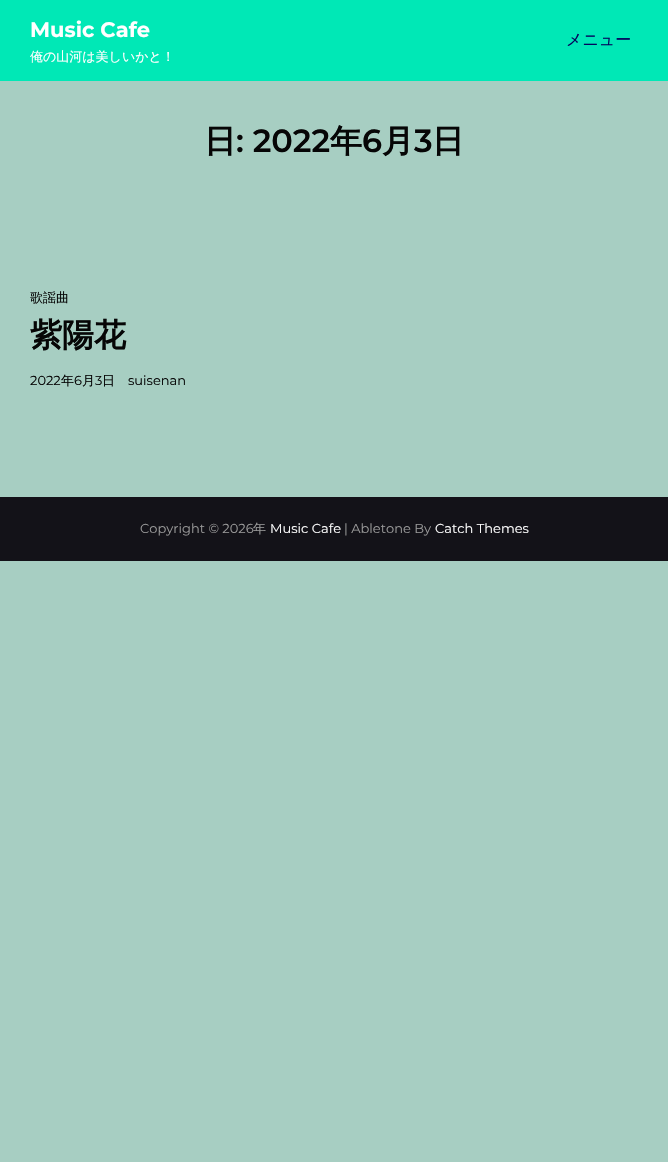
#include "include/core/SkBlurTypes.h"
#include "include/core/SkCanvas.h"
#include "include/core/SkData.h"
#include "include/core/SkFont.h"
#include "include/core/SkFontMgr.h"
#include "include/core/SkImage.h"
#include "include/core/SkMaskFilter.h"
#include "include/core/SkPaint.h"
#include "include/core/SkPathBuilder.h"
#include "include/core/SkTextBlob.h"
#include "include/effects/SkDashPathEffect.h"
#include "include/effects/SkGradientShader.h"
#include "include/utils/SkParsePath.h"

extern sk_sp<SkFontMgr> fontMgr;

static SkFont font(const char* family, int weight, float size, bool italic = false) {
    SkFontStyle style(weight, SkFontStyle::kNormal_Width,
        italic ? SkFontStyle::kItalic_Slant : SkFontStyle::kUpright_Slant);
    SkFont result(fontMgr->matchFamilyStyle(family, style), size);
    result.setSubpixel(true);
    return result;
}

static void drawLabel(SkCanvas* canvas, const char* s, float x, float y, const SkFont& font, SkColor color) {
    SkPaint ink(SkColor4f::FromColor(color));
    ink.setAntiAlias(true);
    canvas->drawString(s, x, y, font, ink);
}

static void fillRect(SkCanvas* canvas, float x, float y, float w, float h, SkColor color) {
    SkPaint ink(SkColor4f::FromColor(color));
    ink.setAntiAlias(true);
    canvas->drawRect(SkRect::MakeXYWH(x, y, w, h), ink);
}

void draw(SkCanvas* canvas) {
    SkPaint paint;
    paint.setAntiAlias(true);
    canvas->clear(0xFFA7CEC2);
    fillRect(canvas, 0, 0, 668, 81, 0xFF00E8B6);
    SkFont font1 = font("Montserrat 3", 100, 21);
    drawLabel(canvas, "Music Cafe", 30, 37, font1, 0xFFFFFFFF);
    SkFont font2 = font("WenQuanYi Zen Hei", 500, 13);
    drawLabel(canvas, "俺の山河は美しいかと！", 30, 61, font2, 0xFFFFFFFF);
    SkFont font3 = font("WenQuanYi Zen Hei", 500, 16);
    drawLabel(canvas, "メニュー", 566, 45, font3, 0xFF03065D);
    SkFont font4 = font("WenQuanYi Zen Hei", 700, 32);
    drawLabel(canvas, "日", 204, 152, font4, 0xFF060606);
    SkFont font5 = font("Montserrat", 100, 32);
    drawLabel(canvas, ": 2022", 236, 152, font5, 0xFF060606);
    drawLabel(canvas, "年", 330, 152, font4, 0xFF060606);
    drawLabel(canvas, "6", 362, 152, font5, 0xFF060606);
    drawLabel(canvas, "月", 382, 152, font4, 0xFF060606);
    drawLabel(canvas, "3", 414, 152, font5, 0xFF060606);
    drawLabel(canvas, "日", 432, 152, font4, 0xFF060606);
    drawLabel(canvas, "歌謡曲", 30, 302, font2, 0xFF060606);
    drawLabel(canvas, "紫陽花", 30, 346, font4, 0xFF060606);
    SkFont font6 = font("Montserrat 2", 100, 13);
    drawLabel(canvas, "2022", 30, 385, font6, 0xFF060606);
    drawLabel(canvas, "年", 61, 385, font2, 0xFF060606);
    drawLabel(canvas, "6", 74, 385, font6, 0xFF060606);
    drawLabel(canvas, "月", 82, 385, font2, 0xFF060606);
    drawLabel(canvas, "3", 95, 385, font6, 0xFF060606);
    drawLabel(canvas, "日", 102, 385, font2, 0xFF060606);
    drawLabel(canvas, "suisenan", 128, 385, font6, 0xFF060606);
    fillRect(canvas, 0, 497, 668, 64, 0xFF131218);
    drawLabel(canvas, "Copyright © 2026", 140, 533, font6, 0xFF999999);
    drawLabel(canvas, "年", 253, 533, font2, 0xFF999999);
    drawLabel(canvas, "Music Cafe", 270, 533, font6, 0xFFFFFFFF);
    drawLabel(canvas, "| Abletone By", 344, 533, font6, 0xFF999999);
    drawLabel(canvas, "Catch Themes", 435, 533, font6, 0xFFFFFFFF);
}
